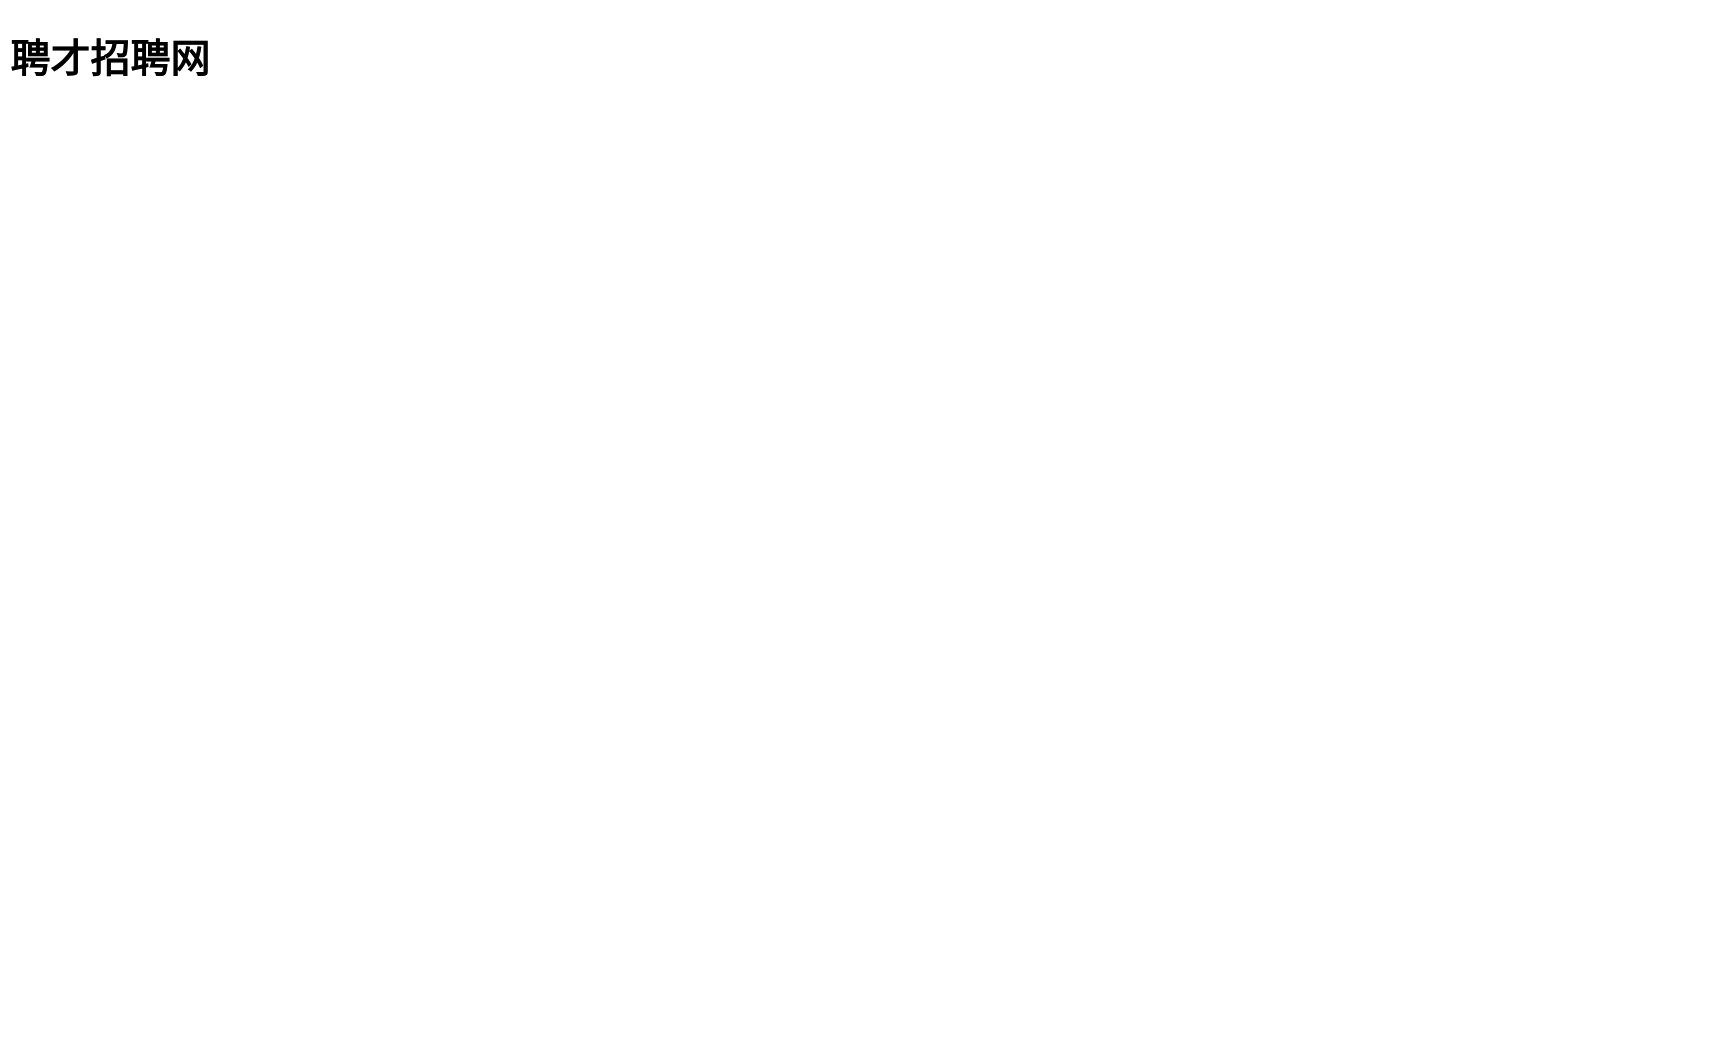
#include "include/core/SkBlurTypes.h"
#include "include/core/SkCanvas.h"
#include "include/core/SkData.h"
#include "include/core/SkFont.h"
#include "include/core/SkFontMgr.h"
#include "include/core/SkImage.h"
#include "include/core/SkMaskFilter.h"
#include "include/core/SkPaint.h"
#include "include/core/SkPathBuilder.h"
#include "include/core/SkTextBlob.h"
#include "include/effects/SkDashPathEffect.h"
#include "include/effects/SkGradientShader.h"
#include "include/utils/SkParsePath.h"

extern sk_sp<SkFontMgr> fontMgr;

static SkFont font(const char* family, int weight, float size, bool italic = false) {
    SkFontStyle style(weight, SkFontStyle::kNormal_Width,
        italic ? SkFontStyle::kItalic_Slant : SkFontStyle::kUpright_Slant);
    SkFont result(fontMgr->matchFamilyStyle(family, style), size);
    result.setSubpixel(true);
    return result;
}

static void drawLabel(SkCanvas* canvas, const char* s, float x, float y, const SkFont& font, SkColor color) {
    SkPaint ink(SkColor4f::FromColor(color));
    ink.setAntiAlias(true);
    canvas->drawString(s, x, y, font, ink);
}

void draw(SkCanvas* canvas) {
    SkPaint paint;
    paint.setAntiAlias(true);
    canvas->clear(0xFFFFFFFF);
    SkFont font1 = font("Noto Sans CJK SC", 700, 40);
    drawLabel(canvas, "聘才招聘网", 10, 73, font1, 0xFF000000);
}
